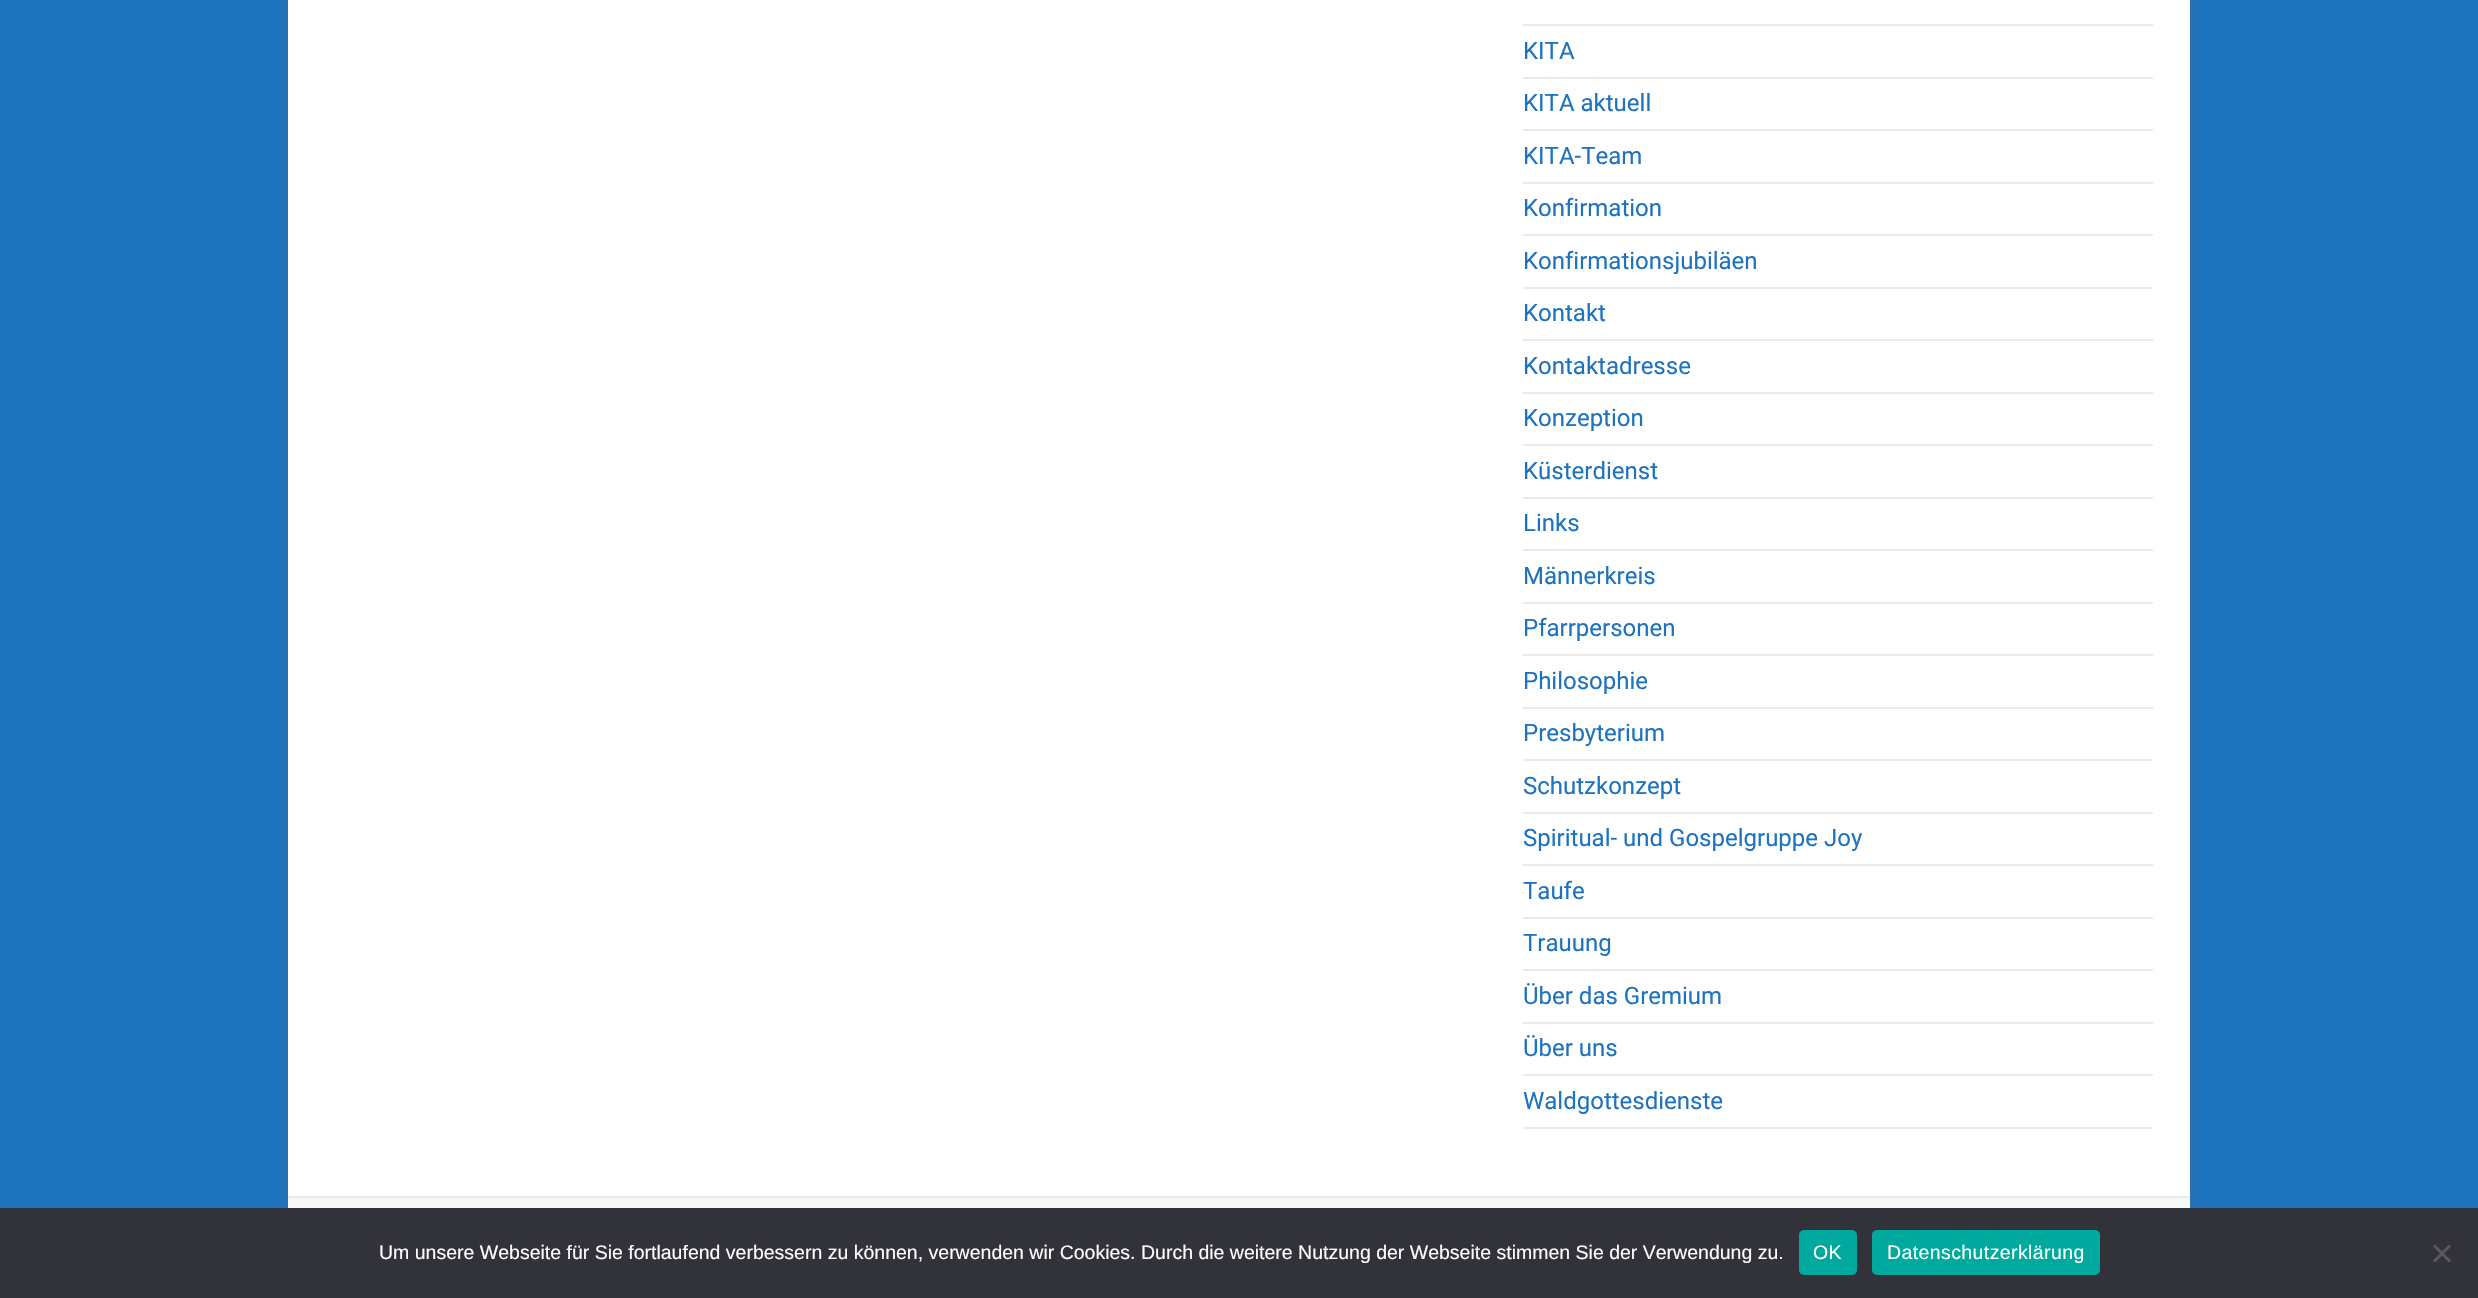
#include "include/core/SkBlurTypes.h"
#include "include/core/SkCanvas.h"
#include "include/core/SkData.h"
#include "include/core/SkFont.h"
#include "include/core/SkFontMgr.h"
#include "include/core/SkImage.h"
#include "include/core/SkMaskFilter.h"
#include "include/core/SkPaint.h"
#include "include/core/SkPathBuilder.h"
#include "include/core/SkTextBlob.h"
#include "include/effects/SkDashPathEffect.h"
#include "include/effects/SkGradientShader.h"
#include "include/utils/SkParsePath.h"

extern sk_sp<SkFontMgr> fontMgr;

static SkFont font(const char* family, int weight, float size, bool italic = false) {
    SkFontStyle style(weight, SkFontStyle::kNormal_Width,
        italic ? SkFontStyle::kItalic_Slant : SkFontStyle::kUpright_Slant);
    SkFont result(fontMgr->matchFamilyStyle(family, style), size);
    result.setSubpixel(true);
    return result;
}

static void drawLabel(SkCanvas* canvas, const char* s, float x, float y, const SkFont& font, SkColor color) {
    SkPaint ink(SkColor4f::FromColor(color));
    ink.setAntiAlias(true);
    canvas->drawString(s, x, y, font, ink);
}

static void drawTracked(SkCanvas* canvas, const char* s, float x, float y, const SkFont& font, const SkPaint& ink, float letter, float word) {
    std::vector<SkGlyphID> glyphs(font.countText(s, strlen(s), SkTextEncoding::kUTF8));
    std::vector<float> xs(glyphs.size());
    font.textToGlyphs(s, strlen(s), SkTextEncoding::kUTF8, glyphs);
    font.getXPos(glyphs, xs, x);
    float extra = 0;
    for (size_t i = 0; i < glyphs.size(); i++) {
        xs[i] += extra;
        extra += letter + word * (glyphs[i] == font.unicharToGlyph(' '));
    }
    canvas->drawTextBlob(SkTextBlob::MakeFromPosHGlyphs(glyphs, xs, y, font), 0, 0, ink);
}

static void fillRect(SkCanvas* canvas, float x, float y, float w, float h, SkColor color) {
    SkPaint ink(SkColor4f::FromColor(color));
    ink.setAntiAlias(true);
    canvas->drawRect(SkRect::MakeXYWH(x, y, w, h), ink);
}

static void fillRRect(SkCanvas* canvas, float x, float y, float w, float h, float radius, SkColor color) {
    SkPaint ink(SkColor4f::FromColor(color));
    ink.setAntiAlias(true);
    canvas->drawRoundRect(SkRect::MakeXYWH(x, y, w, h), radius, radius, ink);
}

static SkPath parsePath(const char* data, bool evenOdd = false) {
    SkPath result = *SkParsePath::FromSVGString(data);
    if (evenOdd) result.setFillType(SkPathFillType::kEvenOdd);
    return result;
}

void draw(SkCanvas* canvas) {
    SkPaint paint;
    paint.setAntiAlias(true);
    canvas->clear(0xFF1E73BE);
    paint.setColor(0x4D646464);
    paint.setMaskFilter(SkMaskFilter::MakeBlur(kNormal_SkBlurStyle, 4.5f));
    canvas->drawRect(SkRect::MakeXYWH(288, -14, 1902, 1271), paint);
    paint.setMaskFilter(nullptr);
    fillRect(canvas, 288, 0, 1902, 1196, 0xFFFFFFFF);
    fillRect(canvas, 1523, 24, 630, 2, 0xFFEAEAEA);
    fillRect(canvas, 1523, 77, 630, 2, 0xFFEAEAEA);
    SkFont font1 = font("Roboto", 400, 24);
    drawLabel(canvas, "KITA", 1523, 59, font1, 0xFF1E73BE);
    fillRect(canvas, 1523, 129, 630, 2, 0xFFEAEAEA);
    drawLabel(canvas, "KITA aktuell", 1523, 111, font1, 0xFF1E73BE);
    fillRect(canvas, 1523, 182, 630, 2, 0xFFEAEAEA);
    drawLabel(canvas, "KITA-Team", 1523, 164, font1, 0xFF1E73BE);
    fillRect(canvas, 1523, 234, 630, 2, 0xFFEAEAEA);
    drawLabel(canvas, "Konfirmation", 1523, 216, font1, 0xFF1E73BE);
    fillRect(canvas, 1523, 287, 630, 2, 0xFFEAEAEA);
    drawLabel(canvas, "Konfirmationsjubiläen", 1523, 269, font1, 0xFF1E73BE);
    fillRect(canvas, 1523, 339, 630, 2, 0xFFEAEAEA);
    drawLabel(canvas, "Kontakt", 1523, 321, font1, 0xFF1E73BE);
    fillRect(canvas, 1523, 392, 630, 2, 0xFFEAEAEA);
    drawLabel(canvas, "Kontaktadresse", 1523, 374, font1, 0xFF1E73BE);
    fillRect(canvas, 1523, 444, 630, 2, 0xFFEAEAEA);
    drawLabel(canvas, "Konzeption", 1523, 426, font1, 0xFF1E73BE);
    fillRect(canvas, 1523, 497, 630, 2, 0xFFEAEAEA);
    drawLabel(canvas, "Küsterdienst", 1523, 479, font1, 0xFF1E73BE);
    fillRect(canvas, 1523, 549, 630, 2, 0xFFEAEAEA);
    drawLabel(canvas, "Links", 1523, 531, font1, 0xFF1E73BE);
    fillRect(canvas, 1523, 602, 630, 2, 0xFFEAEAEA);
    drawLabel(canvas, "Männerkreis", 1523, 584, font1, 0xFF1E73BE);
    fillRect(canvas, 1523, 654, 630, 2, 0xFFEAEAEA);
    drawLabel(canvas, "Pfarrpersonen", 1523, 636, font1, 0xFF1E73BE);
    fillRect(canvas, 1523, 707, 630, 2, 0xFFEAEAEA);
    drawLabel(canvas, "Philosophie", 1523, 689, font1, 0xFF1E73BE);
    fillRect(canvas, 1523, 759, 630, 2, 0xFFEAEAEA);
    drawLabel(canvas, "Presbyterium", 1523, 741, font1, 0xFF1E73BE);
    fillRect(canvas, 1523, 812, 630, 2, 0xFFEAEAEA);
    drawLabel(canvas, "Schutzkonzept", 1523, 794, font1, 0xFF1E73BE);
    fillRect(canvas, 1523, 864, 630, 2, 0xFFEAEAEA);
    drawLabel(canvas, "Spiritual- und Gospelgruppe Joy", 1523, 846, font1, 0xFF1E73BE);
    fillRect(canvas, 1523, 917, 630, 2, 0xFFEAEAEA);
    drawLabel(canvas, "Taufe", 1523, 899, font1, 0xFF1E73BE);
    fillRect(canvas, 1523, 969, 630, 2, 0xFFEAEAEA);
    drawLabel(canvas, "Trauung", 1523, 951, font1, 0xFF1E73BE);
    fillRect(canvas, 1523, 1022, 630, 2, 0xFFEAEAEA);
    drawLabel(canvas, "Über das Gremium", 1523, 1004, font1, 0xFF1E73BE);
    fillRect(canvas, 1523, 1074, 630, 2, 0xFFEAEAEA);
    drawLabel(canvas, "Über uns", 1523, 1056, font1, 0xFF1E73BE);
    fillRect(canvas, 1523, 1127, 630, 2, 0xFFEAEAEA);
    drawLabel(canvas, "Waldgottesdienste", 1523, 1109, font1, 0xFF1E73BE);
    fillRect(canvas, 288, 1198, 1902, 10, 0xFFF8F8F8);
    fillRect(canvas, 288, 1196, 1902, 2, 0xFFEAEAEA);
    fillRect(canvas, 0, 1208, 2478, 90, 0xFF32323A);
    SkFont font2 = font("Liberation Sans", 400, 19.5f);
    drawLabel(canvas, "Um unsere Webseite für Sie fortlaufend verbessern zu können, verwenden wir Cookies. Durch die weitere Nutzung der Webseite stimmen Sie der Verwendung zu.", 379, 1259, font2, 0xFFFFFFFF);
    fillRRect(canvas, 1799, 1230, 58, 45, 5, 0xFF00A99D);
    paint.setColor(0xFFFFFFFF);
    drawTracked(canvas, "OK", 1813, 1259, font2, paint, 0.4f, 0);
    fillRRect(canvas, 1872, 1230, 228, 45, 5, 0xFF00A99D);
    drawTracked(canvas, "Datenschutzerklärung", 1887, 1259, font2, paint, 0.4f, 0);
    paint.setColor(0xFF59595D);
    canvas->drawPath(parsePath("M2449 1244.5L2451 1246.5L2435 1262.5L2433 1260.5Z"), paint);
    canvas->drawPath(parsePath("M2433 1246.5L2435 1244.5L2451 1260.5L2449 1262.5Z"), paint);
}
